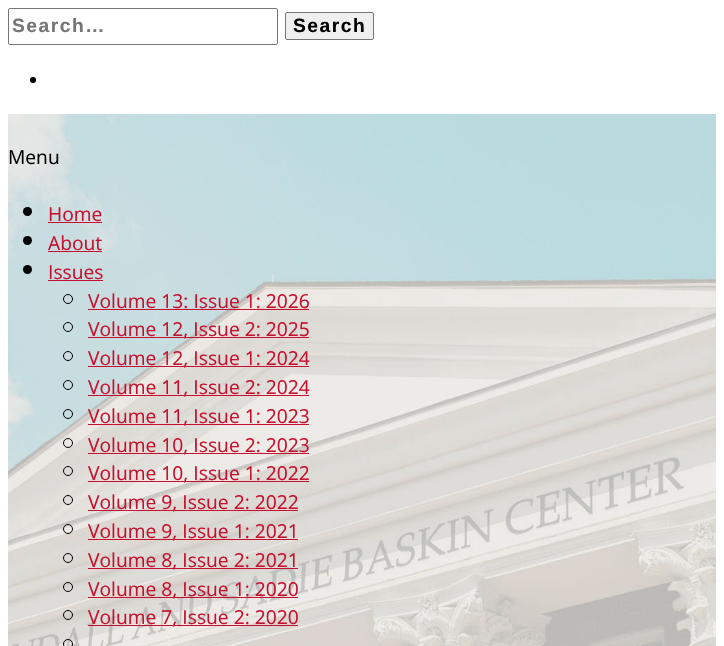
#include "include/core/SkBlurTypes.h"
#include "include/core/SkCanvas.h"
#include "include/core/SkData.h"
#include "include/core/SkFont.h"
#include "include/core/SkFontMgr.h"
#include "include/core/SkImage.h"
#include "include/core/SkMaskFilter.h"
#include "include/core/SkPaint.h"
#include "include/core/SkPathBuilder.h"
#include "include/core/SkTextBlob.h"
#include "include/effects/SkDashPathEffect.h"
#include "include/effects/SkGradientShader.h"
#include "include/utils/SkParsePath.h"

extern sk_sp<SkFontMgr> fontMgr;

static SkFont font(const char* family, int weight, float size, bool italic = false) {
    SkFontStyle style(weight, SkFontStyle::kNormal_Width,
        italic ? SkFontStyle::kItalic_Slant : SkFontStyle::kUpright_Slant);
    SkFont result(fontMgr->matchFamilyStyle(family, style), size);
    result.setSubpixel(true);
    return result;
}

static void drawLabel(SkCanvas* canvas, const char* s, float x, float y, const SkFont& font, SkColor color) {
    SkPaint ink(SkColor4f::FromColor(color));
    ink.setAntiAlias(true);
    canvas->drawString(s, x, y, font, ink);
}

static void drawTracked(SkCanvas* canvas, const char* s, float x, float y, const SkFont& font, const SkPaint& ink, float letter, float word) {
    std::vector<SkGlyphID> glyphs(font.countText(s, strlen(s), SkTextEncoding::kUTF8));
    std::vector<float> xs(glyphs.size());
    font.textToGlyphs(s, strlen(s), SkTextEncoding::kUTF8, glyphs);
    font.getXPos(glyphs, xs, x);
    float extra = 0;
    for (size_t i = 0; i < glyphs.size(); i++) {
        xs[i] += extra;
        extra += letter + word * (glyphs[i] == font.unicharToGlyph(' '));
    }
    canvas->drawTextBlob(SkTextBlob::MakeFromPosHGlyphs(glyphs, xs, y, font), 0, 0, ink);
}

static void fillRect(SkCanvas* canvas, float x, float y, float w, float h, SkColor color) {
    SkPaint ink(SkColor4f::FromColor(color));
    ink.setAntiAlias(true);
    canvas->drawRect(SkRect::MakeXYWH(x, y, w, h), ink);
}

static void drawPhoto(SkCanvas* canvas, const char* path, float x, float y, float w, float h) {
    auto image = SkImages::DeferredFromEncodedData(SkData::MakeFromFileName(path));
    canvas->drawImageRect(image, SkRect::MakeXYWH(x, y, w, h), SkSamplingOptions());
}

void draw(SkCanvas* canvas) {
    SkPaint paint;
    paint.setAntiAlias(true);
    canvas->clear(0xFFFFFFFF);
    paint.setStroke(true);
    paint.setStrokeWidth(1);
    paint.setColor(0xFF767676);
    canvas->drawRoundRect(SkRect::MakeXYWH(8.5f, 8.5f, 269, 36), 1.5f, 1.5f, paint);
    SkFont font1 = font("Liberation Sans", 700, 19.25f);
    paint.setStroke(false);
    paint.setColor(0xFF757575);
    drawTracked(canvas, "Search…", 12, 32, font1, paint, 1.5f, 0);
    paint.setColor(0xFFEFEFEF);
    canvas->drawRoundRect(SkRect::MakeXYWH(285.5f, 12.5f, 88, 27), 1.5f, 1.5f, paint);
    paint.setStroke(true);
    paint.setColor(0xFF767676);
    canvas->drawRoundRect(SkRect::MakeXYWH(285.5f, 12.5f, 88, 27), 1.5f, 1.5f, paint);
    paint.setStroke(false);
    paint.setColor(0xFF000000);
    drawTracked(canvas, "Search", 293, 32, font1, paint, 1.5f, 0);
    canvas->drawCircle(33, 80, 3, paint);
    drawPhoto(canvas, "assets/img1.png", 8, 114, 708, 532);
    SkFont font2 = font("Open Sans", 400, 19.25f);
    drawLabel(canvas, "Menu", 8, 164, font2, 0xFF000000);
    canvas->drawCircle(27.5f, 211.5f, 4.5f, paint);
    drawLabel(canvas, "Home", 48, 221, font2, 0xFFC8102E);
    fillRect(canvas, 48, 222, 54, 1, 0xFFC8102E);
    canvas->drawCircle(27.5f, 240.5f, 4.5f, paint);
    drawLabel(canvas, "About", 48, 250, font2, 0xFFC8102E);
    fillRect(canvas, 48, 251, 54, 1, 0xFFC8102E);
    canvas->drawCircle(27.5f, 269.5f, 4.5f, paint);
    drawLabel(canvas, "Issues", 48, 279, font2, 0xFFC8102E);
    fillRect(canvas, 48, 280, 55, 1, 0xFFC8102E);
    paint.setStroke(true);
    canvas->drawCircle(68, 299, 4.5f, paint);
    drawLabel(canvas, "Volume 13: Issue 1: 2026", 88, 308, font2, 0xFFC8102E);
    fillRect(canvas, 88, 309, 221, 1, 0xFFC8102E);
    canvas->drawCircle(68, 327, 4.5f, paint);
    fillRect(canvas, 88, 337, 221, 1, 0xFFC8102E);
    drawLabel(canvas, "Volume 12, Issue 2: 2025", 88, 336, font2, 0xFFC8102E);
    canvas->drawCircle(68, 356, 4.5f, paint);
    fillRect(canvas, 88, 366, 221, 1, 0xFFC8102E);
    drawLabel(canvas, "Volume 12, Issue 1: 2024", 88, 365, font2, 0xFFC8102E);
    canvas->drawCircle(68, 385, 4.5f, paint);
    fillRect(canvas, 88, 395, 221, 1, 0xFFC8102E);
    drawLabel(canvas, "Volume 11, Issue 2: 2024", 88, 394, font2, 0xFFC8102E);
    canvas->drawCircle(68, 414, 4.5f, paint);
    fillRect(canvas, 88, 424, 221, 1, 0xFFC8102E);
    drawLabel(canvas, "Volume 11, Issue 1: 2023", 88, 423, font2, 0xFFC8102E);
    canvas->drawCircle(68, 443, 4.5f, paint);
    fillRect(canvas, 88, 453, 221, 1, 0xFFC8102E);
    drawLabel(canvas, "Volume 10, Issue 2: 2023", 88, 452, font2, 0xFFC8102E);
    canvas->drawCircle(68, 471, 4.5f, paint);
    fillRect(canvas, 88, 481, 221, 1, 0xFFC8102E);
    drawLabel(canvas, "Volume 10, Issue 1: 2022", 88, 480, font2, 0xFFC8102E);
    canvas->drawCircle(68, 500, 4.5f, paint);
    fillRect(canvas, 88, 510, 210, 1, 0xFFC8102E);
    drawLabel(canvas, "Volume 9, Issue 2: 2022", 88, 509, font2, 0xFFC8102E);
    canvas->drawCircle(68, 529, 4.5f, paint);
    fillRect(canvas, 88, 539, 210, 1, 0xFFC8102E);
    drawLabel(canvas, "Volume 9, Issue 1: 2021", 88, 538, font2, 0xFFC8102E);
    canvas->drawCircle(68, 558, 4.5f, paint);
    fillRect(canvas, 88, 568, 210, 1, 0xFFC8102E);
    drawLabel(canvas, "Volume 8, Issue 2: 2021", 88, 567, font2, 0xFFC8102E);
    canvas->drawCircle(68, 587, 4.5f, paint);
    fillRect(canvas, 88, 597, 210, 1, 0xFFC8102E);
    drawLabel(canvas, "Volume 8, Issue 1: 2020", 88, 596, font2, 0xFFC8102E);
    canvas->drawCircle(68, 615, 4.5f, paint);
    fillRect(canvas, 88, 625, 210, 1, 0xFFC8102E);
    drawLabel(canvas, "Volume 7, Issue 2: 2020", 88, 624, font2, 0xFFC8102E);
    canvas->drawCircle(68, 644, 4.5f, paint);
}
